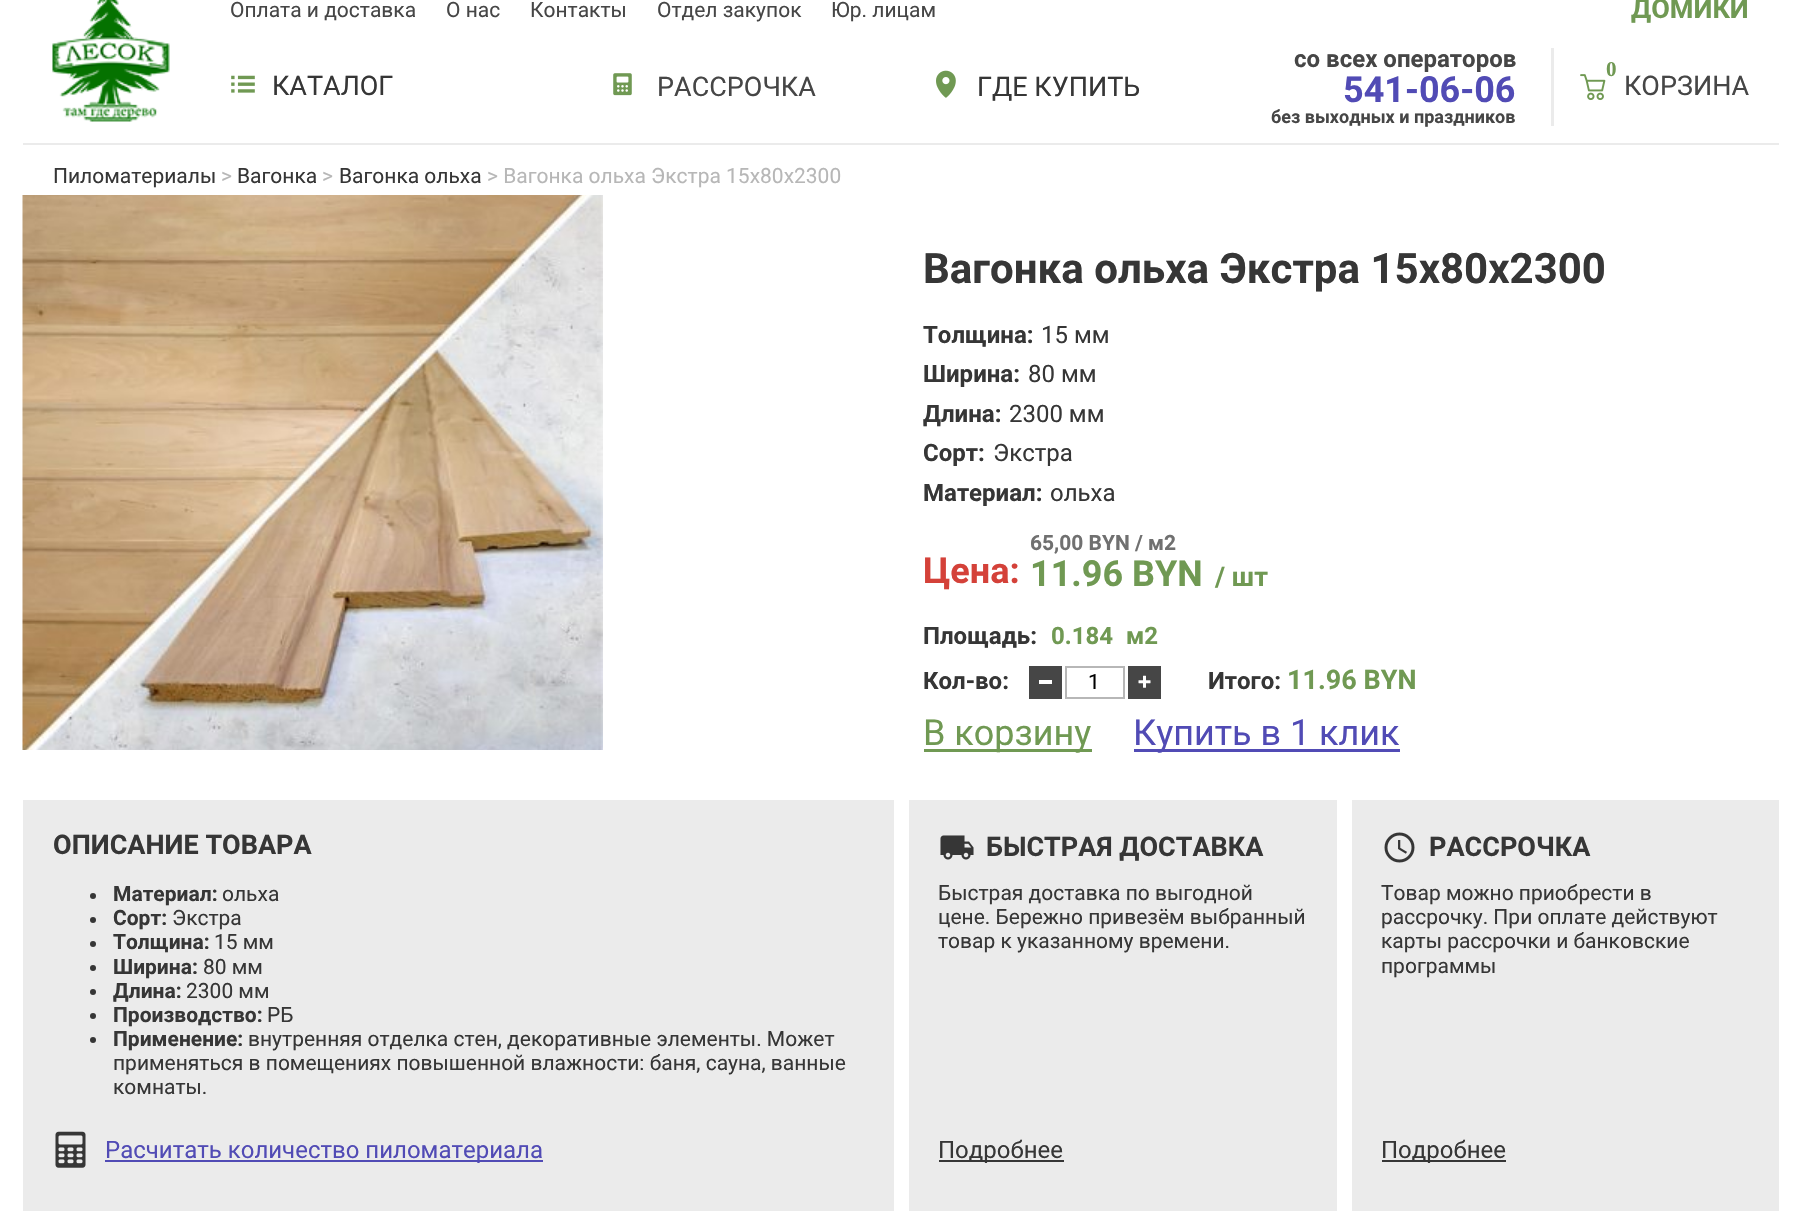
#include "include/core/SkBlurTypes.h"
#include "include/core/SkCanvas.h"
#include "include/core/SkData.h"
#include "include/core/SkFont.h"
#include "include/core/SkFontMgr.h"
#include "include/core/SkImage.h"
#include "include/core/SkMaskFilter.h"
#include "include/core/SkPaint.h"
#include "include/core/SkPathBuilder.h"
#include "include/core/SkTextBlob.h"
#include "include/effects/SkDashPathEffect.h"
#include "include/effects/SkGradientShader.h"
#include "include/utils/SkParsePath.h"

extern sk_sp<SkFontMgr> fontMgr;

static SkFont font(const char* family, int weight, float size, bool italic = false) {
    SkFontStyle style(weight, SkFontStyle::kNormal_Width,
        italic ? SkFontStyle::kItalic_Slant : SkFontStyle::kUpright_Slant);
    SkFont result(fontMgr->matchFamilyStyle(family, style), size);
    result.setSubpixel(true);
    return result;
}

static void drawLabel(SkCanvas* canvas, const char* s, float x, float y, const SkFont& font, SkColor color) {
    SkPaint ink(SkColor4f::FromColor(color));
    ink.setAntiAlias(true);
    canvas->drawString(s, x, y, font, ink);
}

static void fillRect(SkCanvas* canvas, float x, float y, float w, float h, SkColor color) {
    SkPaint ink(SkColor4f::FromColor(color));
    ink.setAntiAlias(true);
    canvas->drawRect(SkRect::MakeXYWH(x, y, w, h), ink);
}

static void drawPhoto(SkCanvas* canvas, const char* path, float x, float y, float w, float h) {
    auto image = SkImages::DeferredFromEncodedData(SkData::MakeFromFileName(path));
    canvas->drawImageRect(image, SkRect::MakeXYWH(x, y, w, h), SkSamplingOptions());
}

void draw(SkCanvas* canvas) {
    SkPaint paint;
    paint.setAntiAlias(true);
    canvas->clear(0xFFFFFFFF);
    drawPhoto(canvas, "assets/img1.png", 52, 0, 118, 122);
    SkFont font1 = font("Roboto", 400, 21);
    drawLabel(canvas, "Оплата и доставка", 230, 17, font1, 0xFF464646);
    drawLabel(canvas, "О нас", 446, 17, font1, 0xFF464646);
    drawLabel(canvas, "Контакты", 530, 17, font1, 0xFF464646);
    drawLabel(canvas, "Отдел закупок", 657, 17, font1, 0xFF464646);
    drawLabel(canvas, "Юр. лицам", 831, 17, font1, 0xFF464646);
    SkFont font2 = font("Roboto", 700, 27);
    drawLabel(canvas, "ДОМИКИ", 1631, 18, font2, 0xFF709953);
    drawPhoto(canvas, "assets/img2.png", 231, 75, 24, 18);
    SkFont font3 = font("Roboto", 400, 27);
    drawLabel(canvas, "КАТАЛОГ", 272, 95, font3, 0xFF363636);
    drawPhoto(canvas, "assets/img3.png", 613, 73, 19, 23);
    drawLabel(canvas, "РАССРОЧКА", 657, 96, font3, 0xFF464646);
    drawPhoto(canvas, "assets/img4.png", 936, 70, 20, 28);
    drawLabel(canvas, "ГДЕ КУПИТЬ", 977, 96, font3, 0xFF363636);
    SkFont font4 = font("Roboto", 700, 24);
    drawLabel(canvas, "со всех операторов", 1294, 67, font4, 0xFF464646);
    fillRect(canvas, 1551, 48, 3, 78, 0xFFEBEBEB);
    SkFont font5 = font("Roboto", 700, 36);
    drawLabel(canvas, "541-06-06", 1343, 102, font5, 0xFF514BB5);
    SkFont font6 = font("Roboto", 700, 18);
    drawLabel(canvas, "без выходных и праздников", 1271, 123, font6, 0xFF464646);
    SkFont font7 = font("Liberation Serif", 700, 21);
    drawLabel(canvas, "0", 1606, 76, font7, 0xFF709953);
    drawPhoto(canvas, "assets/img5.png", 1580, 74, 26, 27);
    drawLabel(canvas, "КОРЗИНА", 1624, 95, font3, 0xFF464646);
    fillRect(canvas, 23, 143, 1756, 2, 0xFFEBEBEB);
    drawLabel(canvas, "Пиломатериалы", 53, 183, font1, 0xFF363636);
    drawLabel(canvas, ">", 221, 183, font1, 0xFFB7B7B7);
    drawLabel(canvas, "Вагонка", 237, 183, font1, 0xFF363636);
    drawLabel(canvas, ">", 322, 183, font1, 0xFFB7B7B7);
    drawLabel(canvas, "Вагонка ольха", 339, 183, font1, 0xFF363636);
    drawLabel(canvas, "> Вагонка ольха Экстра 15x80x2300", 487, 183, font1, 0xFFB7B7B7);
    drawPhoto(canvas, "assets/img6.png", 22, 195, 581, 555);
    SkFont font8 = font("Roboto", 700, 42);
    drawLabel(canvas, "Вагонка ольха Экстра 15x80x2300", 923, 283, font8, 0xFF363636);
    drawLabel(canvas, "Толщина:", 923, 343, font4, 0xFF363636);
    SkFont font9 = font("Roboto", 400, 24);
    drawLabel(canvas, "15 мм", 1041, 343, font9, 0xFF363636);
    drawLabel(canvas, "Ширина:", 923, 382, font4, 0xFF363636);
    drawLabel(canvas, "80 мм", 1028, 382, font9, 0xFF363636);
    drawLabel(canvas, "Длина:", 923, 422, font4, 0xFF363636);
    drawLabel(canvas, "2300 мм", 1009, 422, font9, 0xFF363636);
    drawLabel(canvas, "Сорт:", 923, 461, font4, 0xFF363636);
    drawLabel(canvas, "Экстра", 993, 461, font9, 0xFF363636);
    drawLabel(canvas, "Материал:", 923, 501, font4, 0xFF363636);
    drawLabel(canvas, "ольха", 1050, 501, font9, 0xFF363636);
    drawLabel(canvas, "Цена:", 923, 583, font5, 0xFFD44139);
    SkFont font10 = font("Roboto", 700, 21);
    drawLabel(canvas, "65,00 BYN / м2", 1030, 550, font10, 0xFF707070);
    drawLabel(canvas, "11.96 BYN", 1030, 586, font5, 0xFF709953);
    drawLabel(canvas, "/ шт", 1215, 586, font2, 0xFF709953);
    drawLabel(canvas, "Площадь:", 923, 644, font4, 0xFF363636);
    drawLabel(canvas, "0.184", 1051, 644, font4, 0xFF709953);
    drawLabel(canvas, "м2", 1126, 644, font4, 0xFF709953);
    drawLabel(canvas, "Кол-во:", 923, 689, font4, 0xFF363636);
    fillRect(canvas, 1029, 666, 33, 33, 0xFF464646);
    fillRect(canvas, 1039, 680, 13, 4, 0xFFFFFFFF);
    paint.setStroke(true);
    paint.setStrokeWidth(2);
    paint.setColor(0xFFB7B7B7);
    canvas->drawRect(SkRect::MakeXYWH(1066, 667, 58, 31), paint);
    drawLabel(canvas, "1", 1088, 689, font1, 0xFF000000);
    fillRect(canvas, 1128, 666, 33, 33, 0xFF464646);
    drawPhoto(canvas, "assets/img7.png", 1138, 675, 13, 13);
    drawLabel(canvas, "Итого:", 1208, 689, font4, 0xFF363636);
    drawLabel(canvas, "11.96 BYN", 1287, 689, font2, 0xFF709953);
    fillRect(canvas, 924, 749, 168, 3, 0xFF709953);
    SkFont font11 = font("Roboto", 400, 36);
    drawLabel(canvas, "В корзину", 923, 745, font11, 0xFF709953);
    fillRect(canvas, 1134, 749, 266, 3, 0xFF514BB5);
    drawLabel(canvas, "Купить в 1 клик", 1133, 745, font11, 0xFF514BB5);
    fillRect(canvas, 23, 800, 871, 411, 0xFFEBEBEB);
    drawLabel(canvas, "ОПИСАНИЕ ТОВАРА", 53, 854, font2, 0xFF363636);
    paint.setStroke(false);
    paint.setColor(0xFF363636);
    canvas->drawCircle(93, 896, 3, paint);
    drawLabel(canvas, "Материал:", 113, 901, font10, 0xFF363636);
    drawLabel(canvas, "ольха", 222, 901, font1, 0xFF363636);
    canvas->drawCircle(93, 920, 3, paint);
    drawLabel(canvas, "Сорт:", 113, 925, font10, 0xFF363636);
    drawLabel(canvas, "Экстра", 172, 925, font1, 0xFF363636);
    canvas->drawCircle(93, 944, 3, paint);
    drawLabel(canvas, "Толщина:", 113, 949, font10, 0xFF363636);
    drawLabel(canvas, "15 мм", 214, 949, font1, 0xFF363636);
    canvas->drawCircle(93, 968, 3, paint);
    drawLabel(canvas, "Ширина:", 113, 974, font10, 0xFF363636);
    drawLabel(canvas, "80 мм", 203, 974, font1, 0xFF363636);
    canvas->drawCircle(93, 992, 3, paint);
    drawLabel(canvas, "Длина:", 113, 998, font10, 0xFF363636);
    drawLabel(canvas, "2300 мм", 186, 998, font1, 0xFF363636);
    canvas->drawCircle(93, 1016, 3, paint);
    drawLabel(canvas, "Производство:", 113, 1022, font10, 0xFF363636);
    drawLabel(canvas, "РБ", 267, 1022, font1, 0xFF363636);
    canvas->drawCircle(93, 1040, 3, paint);
    drawLabel(canvas, "Применение:", 113, 1046, font10, 0xFF363636);
    drawLabel(canvas, "внутренняя отделка стен, декоративные элементы. Может", 248, 1046, font1, 0xFF363636);
    drawLabel(canvas, "применяться в помещениях повышенной влажности: баня, сауна, ванные", 113, 1070, font1, 0xFF363636);
    drawLabel(canvas, "комнаты.", 113, 1094, font1, 0xFF363636);
    drawPhoto(canvas, "assets/img8.png", 55, 1131, 31, 37);
    fillRect(canvas, 105, 1160, 438, 2, 0xFF514BB5);
    drawLabel(canvas, "Расчитать количество пиломатериала", 105, 1158, font9, 0xFF514BB5);
    fillRect(canvas, 909, 800, 428, 411, 0xFFEBEBEB);
    drawPhoto(canvas, "assets/img9.png", 940, 835, 34, 25);
    drawLabel(canvas, "БЫСТРАЯ ДОСТАВКА", 986, 856, font2, 0xFF363636);
    drawLabel(canvas, "Быстрая доставка по выгодной", 938, 900, font1, 0xFF363636);
    drawLabel(canvas, "цене. Бережно привезём выбранный", 938, 924, font1, 0xFF363636);
    drawLabel(canvas, "товар к указанному времени.", 938, 948, font1, 0xFF363636);
    fillRect(canvas, 939, 1160, 125, 2, 0xFF363636);
    drawLabel(canvas, "Подробнее", 938, 1158, font9, 0xFF363636);
    fillRect(canvas, 1352, 800, 427, 411, 0xFFEBEBEB);
    drawPhoto(canvas, "assets/img10.png", 1384, 832, 31, 31);
    drawLabel(canvas, "РАССРОЧКА", 1429, 856, font2, 0xFF363636);
    drawLabel(canvas, "Товар можно приобрести в", 1381, 900, font1, 0xFF363636);
    drawLabel(canvas, "рассрочку. При оплате действуют", 1381, 924, font1, 0xFF363636);
    drawLabel(canvas, "карты рассрочки и банковские", 1381, 948, font1, 0xFF363636);
    drawLabel(canvas, "программы", 1381, 973, font1, 0xFF363636);
    fillRect(canvas, 1382, 1160, 124, 2, 0xFF363636);
    drawLabel(canvas, "Подробнее", 1381, 1158, font9, 0xFF363636);
}
